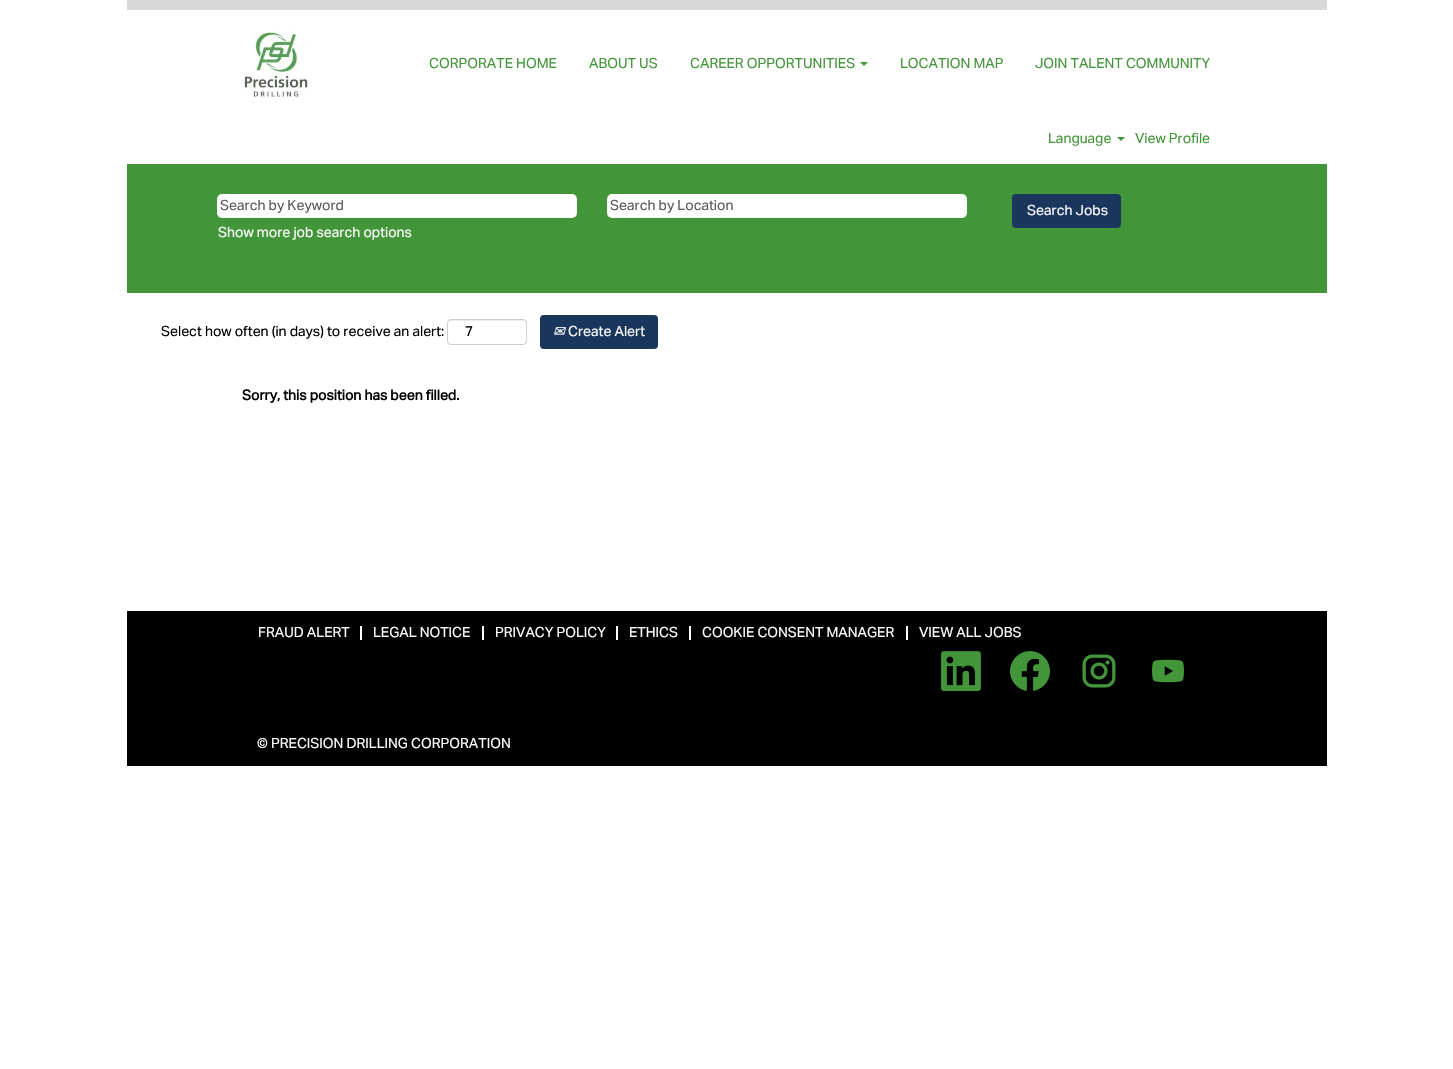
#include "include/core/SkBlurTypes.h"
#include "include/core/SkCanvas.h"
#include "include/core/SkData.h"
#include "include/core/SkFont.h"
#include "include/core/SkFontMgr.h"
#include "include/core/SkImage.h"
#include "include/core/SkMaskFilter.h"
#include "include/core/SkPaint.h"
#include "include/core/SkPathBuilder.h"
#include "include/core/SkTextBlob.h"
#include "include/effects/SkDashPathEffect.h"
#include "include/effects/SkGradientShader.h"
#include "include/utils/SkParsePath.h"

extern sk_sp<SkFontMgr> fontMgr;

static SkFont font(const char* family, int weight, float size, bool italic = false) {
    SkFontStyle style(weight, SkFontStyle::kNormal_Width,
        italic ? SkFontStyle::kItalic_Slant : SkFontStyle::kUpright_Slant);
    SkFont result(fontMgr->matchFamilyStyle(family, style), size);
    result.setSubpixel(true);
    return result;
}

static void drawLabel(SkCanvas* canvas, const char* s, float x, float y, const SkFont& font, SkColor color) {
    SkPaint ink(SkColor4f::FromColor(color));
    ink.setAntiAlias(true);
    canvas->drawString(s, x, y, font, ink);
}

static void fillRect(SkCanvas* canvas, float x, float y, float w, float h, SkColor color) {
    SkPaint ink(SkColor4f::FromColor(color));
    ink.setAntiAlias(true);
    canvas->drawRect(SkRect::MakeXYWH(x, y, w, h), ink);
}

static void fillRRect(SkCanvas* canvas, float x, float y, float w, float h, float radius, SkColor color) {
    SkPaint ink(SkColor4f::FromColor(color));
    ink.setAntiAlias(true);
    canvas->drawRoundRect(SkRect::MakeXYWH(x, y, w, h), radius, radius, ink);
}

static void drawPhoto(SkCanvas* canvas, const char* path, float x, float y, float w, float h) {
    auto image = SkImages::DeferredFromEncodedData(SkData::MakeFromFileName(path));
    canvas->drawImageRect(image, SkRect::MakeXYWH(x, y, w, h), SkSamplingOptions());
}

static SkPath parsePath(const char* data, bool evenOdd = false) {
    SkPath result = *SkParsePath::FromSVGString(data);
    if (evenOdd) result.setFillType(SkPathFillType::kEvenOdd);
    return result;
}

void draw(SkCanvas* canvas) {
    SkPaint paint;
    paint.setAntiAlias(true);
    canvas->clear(0xFFFFFFFF);
    fillRect(canvas, 127, 0, 1200, 10, 0xFFD8D8D8);
    drawPhoto(canvas, "assets/img1.png", 243, 31, 66, 67);
    SkFont font1 = font("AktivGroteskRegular", 400, 14);
    drawLabel(canvas, "CORPORATE HOME", 429, 68, font1, 0xFF439539);
    drawLabel(canvas, "ABOUT US", 589, 68, font1, 0xFF439539);
    drawLabel(canvas, "CAREER OPPORTUNITIES", 690, 68, font1, 0xFF439539);
    paint.setColor(0xFF439539);
    canvas->drawPath(parsePath("M860 62H868L864 66Z"), paint);
    drawLabel(canvas, "LOCATION MAP", 900, 68, font1, 0xFF439539);
    drawLabel(canvas, "JOIN TALENT COMMUNITY", 1035, 68, font1, 0xFF439539);
    drawLabel(canvas, "Language", 1048, 143, font1, 0xFF439539);
    canvas->drawPath(parsePath("M1117 137H1125L1121 141Z"), paint);
    drawLabel(canvas, "View Profile", 1135, 143, font1, 0xFF439539);
    fillRect(canvas, 127, 164, 1200, 129, 0xFF439539);
    fillRRect(canvas, 217, 194, 360, 24, 5, 0xFFFFFFFF);
    drawLabel(canvas, "Search by Keyword", 220, 210, font1, 0xFF595959);
    fillRRect(canvas, 607, 194, 360, 24, 5, 0xFFFFFFFF);
    drawLabel(canvas, "Search by Location", 610, 210, font1, 0xFF595959);
    drawLabel(canvas, "Show more job search options", 218, 237, font1, 0xFFFFFFFF);
    fillRRect(canvas, 1012, 194, 109, 34, 4, 0xFF1B365D);
    drawLabel(canvas, "Search Jobs", 1027, 215, font1, 0xFFFFFFFF);
    drawLabel(canvas, "Select how often (in days) to receive an alert:", 161, 336, font1, 0xFF000000);
    paint.setColor(0xFFECECEC);
    canvas->drawPath(parsePath("M451 321H523C525 321 526 322 526 324C526 317 515 320 511 320H463C459 320 448 317 448 324C448 322 449 321 451 321Z"), paint);
    paint.setStroke(true);
    paint.setStrokeWidth(1);
    paint.setColor(0xFFCCCCCC);
    canvas->drawRoundRect(SkRect::MakeXYWH(447.5f, 319.5f, 79, 25), 3.5f, 3.5f, paint);
    drawLabel(canvas, "7", 465, 336, font1, 0xFF000000);
    fillRRect(canvas, 540, 315, 118, 34, 4, 0xFF1B365D);
    SkFont font2 = font("DejaVu Sans", 400, 14, true);
    drawLabel(canvas, "✉", 553, 336, font2, 0xFFFFFFFF);
    drawLabel(canvas, "Create Alert", 568, 336, font1, 0xFFFFFFFF);
    SkFont font3 = font("AktivGroteskRegular", 700, 14);
    drawLabel(canvas, "Sorry, this position has been filled.", 242, 400, font3, 0xFF000000);
    fillRect(canvas, 127, 611, 1200, 155, 0xFF000000);
    fillRect(canvas, 360, 626, 2, 14, 0xFFFFFFFF);
    drawLabel(canvas, "FRAUD ALERT", 258, 637, font1, 0xFFFFFFFF);
    fillRect(canvas, 482, 626, 2, 14, 0xFFFFFFFF);
    drawLabel(canvas, "LEGAL NOTICE", 373, 637, font1, 0xFFFFFFFF);
    fillRect(canvas, 616, 626, 2, 14, 0xFFFFFFFF);
    drawLabel(canvas, "PRIVACY POLICY", 495, 637, font1, 0xFFFFFFFF);
    fillRect(canvas, 689, 626, 2, 14, 0xFFFFFFFF);
    drawLabel(canvas, "ETHICS", 629, 637, font1, 0xFFFFFFFF);
    fillRect(canvas, 906, 626, 2, 14, 0xFFFFFFFF);
    drawLabel(canvas, "COOKIE CONSENT MANAGER", 702, 637, font1, 0xFFFFFFFF);
    drawLabel(canvas, "VIEW ALL JOBS", 919, 637, font1, 0xFFFFFFFF);
    drawPhoto(canvas, "assets/img2.png", 941, 651, 40, 40);
    drawPhoto(canvas, "assets/img3.png", 1010, 651, 40, 40);
    drawPhoto(canvas, "assets/img4.png", 1082, 654, 34, 34);
    drawPhoto(canvas, "assets/img5.png", 1152, 659, 32, 24);
    drawLabel(canvas, "© PRECISION DRILLING CORPORATION", 257, 748, font1, 0xFFFFFFFF);
}
